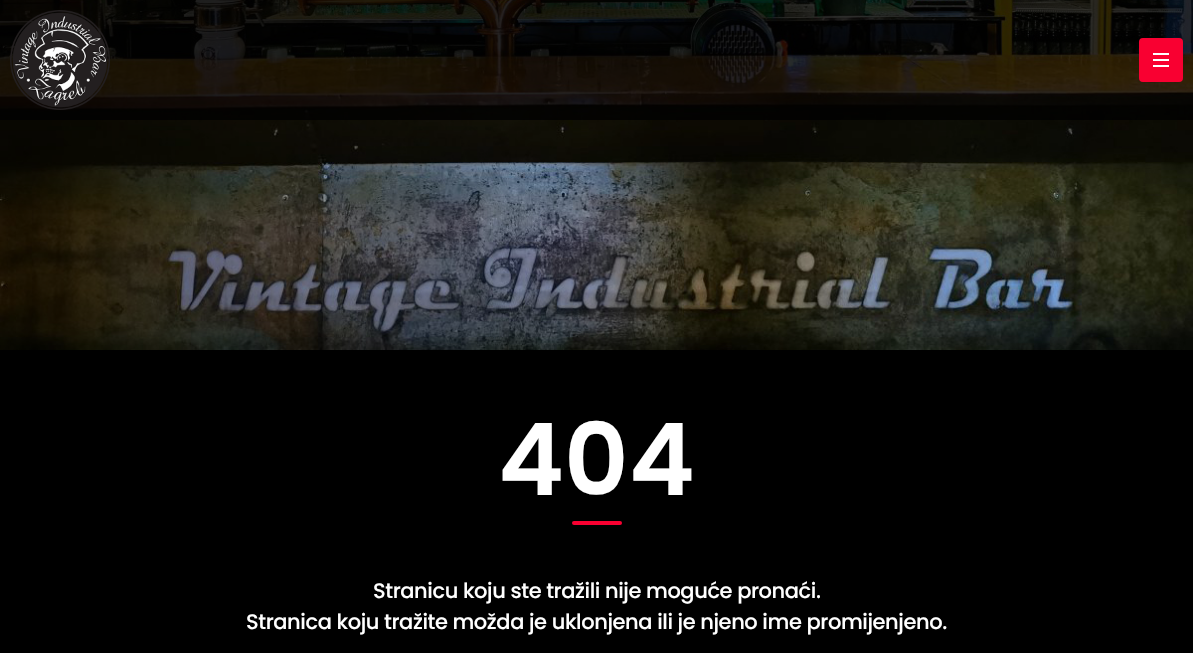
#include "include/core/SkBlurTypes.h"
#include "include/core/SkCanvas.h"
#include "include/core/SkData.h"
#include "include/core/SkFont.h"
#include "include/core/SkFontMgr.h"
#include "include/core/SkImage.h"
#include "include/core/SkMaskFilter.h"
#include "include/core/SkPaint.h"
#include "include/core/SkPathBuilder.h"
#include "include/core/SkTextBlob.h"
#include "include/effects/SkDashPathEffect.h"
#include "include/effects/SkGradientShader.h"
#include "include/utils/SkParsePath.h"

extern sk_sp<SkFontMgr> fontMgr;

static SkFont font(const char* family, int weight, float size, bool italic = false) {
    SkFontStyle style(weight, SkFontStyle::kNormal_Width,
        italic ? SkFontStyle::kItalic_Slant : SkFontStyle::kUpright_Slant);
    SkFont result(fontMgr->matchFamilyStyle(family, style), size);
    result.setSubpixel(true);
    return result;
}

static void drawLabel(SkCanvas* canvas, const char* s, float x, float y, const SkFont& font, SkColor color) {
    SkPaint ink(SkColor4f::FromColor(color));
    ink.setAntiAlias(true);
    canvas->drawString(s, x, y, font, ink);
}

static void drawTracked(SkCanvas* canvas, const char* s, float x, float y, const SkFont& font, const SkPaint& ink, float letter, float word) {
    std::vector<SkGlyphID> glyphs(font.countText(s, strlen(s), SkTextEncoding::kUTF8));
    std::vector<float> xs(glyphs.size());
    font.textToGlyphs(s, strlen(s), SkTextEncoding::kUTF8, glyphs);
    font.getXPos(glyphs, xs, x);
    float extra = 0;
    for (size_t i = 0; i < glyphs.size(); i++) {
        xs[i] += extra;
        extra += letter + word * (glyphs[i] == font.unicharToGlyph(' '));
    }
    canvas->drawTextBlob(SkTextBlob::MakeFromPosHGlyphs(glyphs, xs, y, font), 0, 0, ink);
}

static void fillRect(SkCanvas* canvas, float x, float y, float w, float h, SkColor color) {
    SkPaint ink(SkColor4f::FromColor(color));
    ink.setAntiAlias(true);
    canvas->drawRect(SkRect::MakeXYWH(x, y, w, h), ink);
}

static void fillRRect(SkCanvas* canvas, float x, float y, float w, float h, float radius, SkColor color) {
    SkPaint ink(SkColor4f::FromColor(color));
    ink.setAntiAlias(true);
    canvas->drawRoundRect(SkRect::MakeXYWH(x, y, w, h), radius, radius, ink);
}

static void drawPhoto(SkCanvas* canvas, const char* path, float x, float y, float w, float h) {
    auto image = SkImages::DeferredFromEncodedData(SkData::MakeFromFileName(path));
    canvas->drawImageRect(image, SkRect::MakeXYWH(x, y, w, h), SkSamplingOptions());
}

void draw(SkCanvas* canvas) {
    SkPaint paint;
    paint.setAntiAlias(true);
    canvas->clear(0xFF000000);
    drawPhoto(canvas, "assets/img2.png", 0, 0, 1193, 350);
    fillRect(canvas, 0, 0, 1193, 120, 0xCC000000);
    drawPhoto(canvas, "assets/img1.png", 10, 10, 100, 100);
    paint.setColor(0xFFF90031);
    canvas->drawRoundRect(SkRect::MakeXYWH(1140, 39, 42, 42), 3, 3, paint);
    paint.setStroke(true);
    paint.setStrokeWidth(2);
    canvas->drawRoundRect(SkRect::MakeXYWH(1140, 39, 42, 42), 3, 3, paint);
    fillRect(canvas, 1153, 59, 16, 2, 0xFFFFFFFF);
    fillRect(canvas, 1153, 53, 16, 2, 0xFFFFFFFF);
    fillRect(canvas, 1153, 65, 16, 2, 0xFFFFFFFF);
    SkFont font1 = font("Poppins", 600, 100);
    drawLabel(canvas, "404", 498, 495, font1, 0xFFFFFFFF);
    fillRRect(canvas, 572, 521, 50, 4, 2, 0xFFF90031);
    SkFont font2 = font("Poppins", 500, 21);
    paint.setStroke(false);
    paint.setColor(0xFFFFFFFF);
    drawTracked(canvas, "Stranicu koju ste tražili nije moguće pronaći.", 373, 598, font2, paint, -0.42f, 0);
    drawTracked(canvas, "Stranica koju tražite možda je uklonjena ili je njeno ime promijenjeno.", 246, 629, font2, paint, -0.42f, 0);
}
